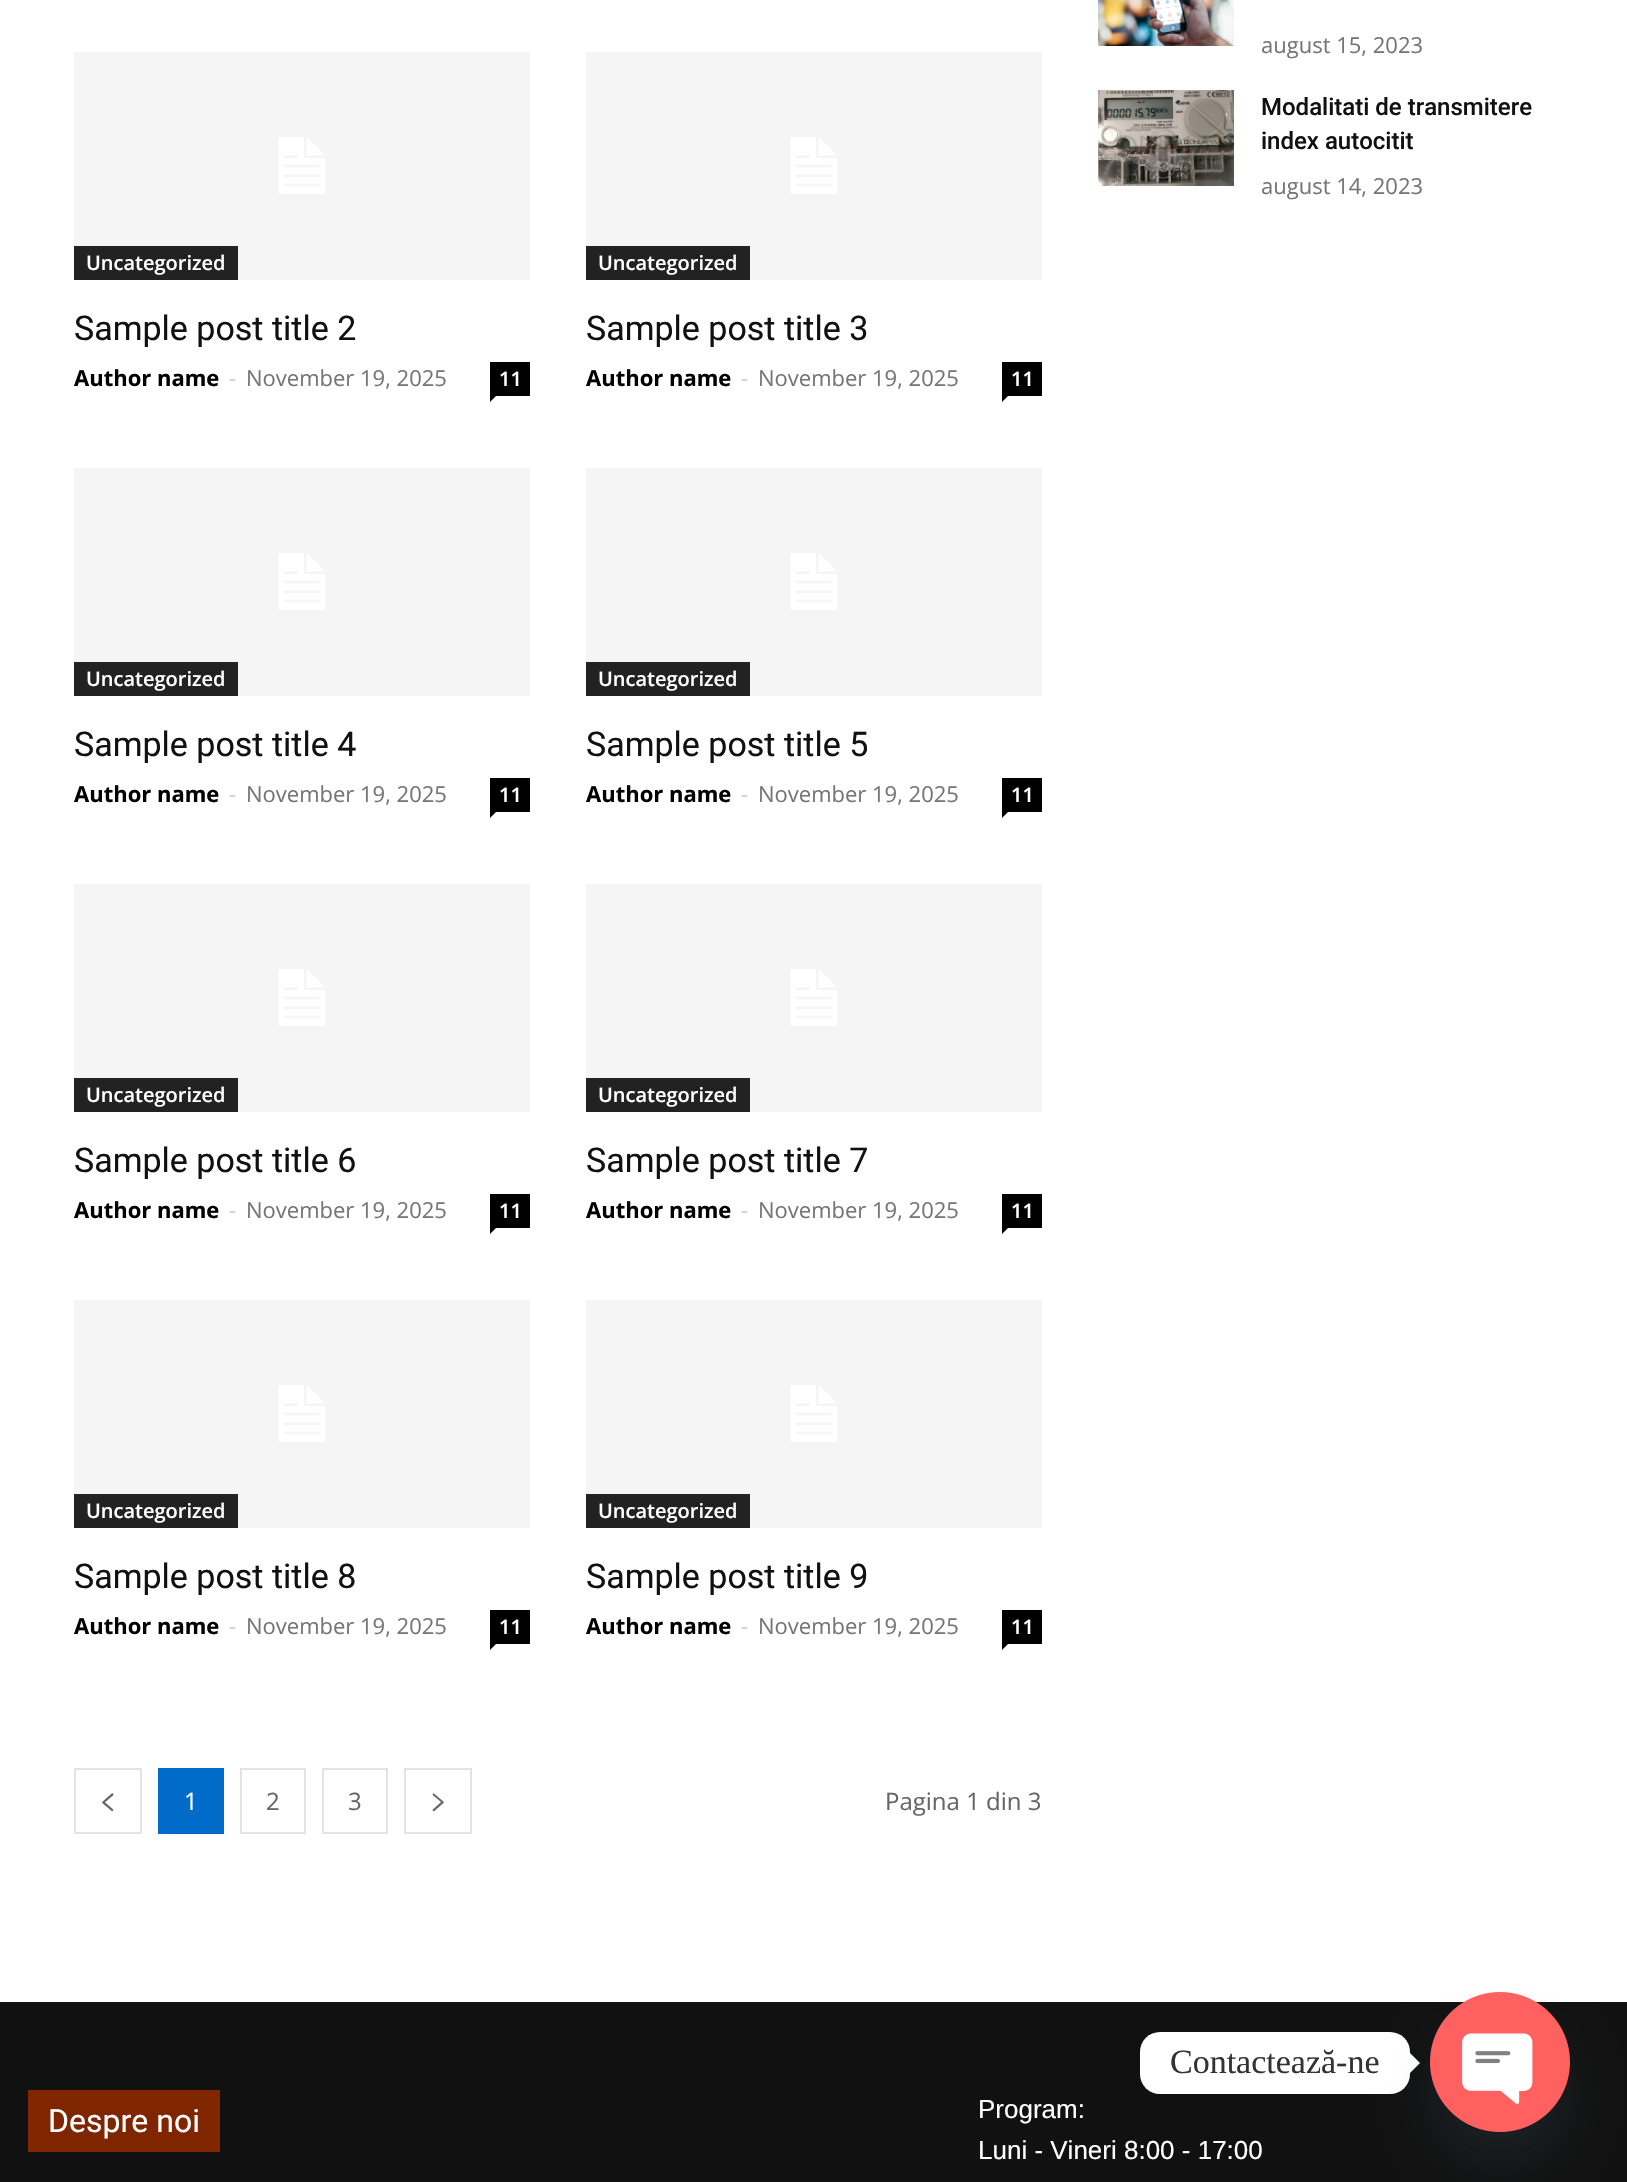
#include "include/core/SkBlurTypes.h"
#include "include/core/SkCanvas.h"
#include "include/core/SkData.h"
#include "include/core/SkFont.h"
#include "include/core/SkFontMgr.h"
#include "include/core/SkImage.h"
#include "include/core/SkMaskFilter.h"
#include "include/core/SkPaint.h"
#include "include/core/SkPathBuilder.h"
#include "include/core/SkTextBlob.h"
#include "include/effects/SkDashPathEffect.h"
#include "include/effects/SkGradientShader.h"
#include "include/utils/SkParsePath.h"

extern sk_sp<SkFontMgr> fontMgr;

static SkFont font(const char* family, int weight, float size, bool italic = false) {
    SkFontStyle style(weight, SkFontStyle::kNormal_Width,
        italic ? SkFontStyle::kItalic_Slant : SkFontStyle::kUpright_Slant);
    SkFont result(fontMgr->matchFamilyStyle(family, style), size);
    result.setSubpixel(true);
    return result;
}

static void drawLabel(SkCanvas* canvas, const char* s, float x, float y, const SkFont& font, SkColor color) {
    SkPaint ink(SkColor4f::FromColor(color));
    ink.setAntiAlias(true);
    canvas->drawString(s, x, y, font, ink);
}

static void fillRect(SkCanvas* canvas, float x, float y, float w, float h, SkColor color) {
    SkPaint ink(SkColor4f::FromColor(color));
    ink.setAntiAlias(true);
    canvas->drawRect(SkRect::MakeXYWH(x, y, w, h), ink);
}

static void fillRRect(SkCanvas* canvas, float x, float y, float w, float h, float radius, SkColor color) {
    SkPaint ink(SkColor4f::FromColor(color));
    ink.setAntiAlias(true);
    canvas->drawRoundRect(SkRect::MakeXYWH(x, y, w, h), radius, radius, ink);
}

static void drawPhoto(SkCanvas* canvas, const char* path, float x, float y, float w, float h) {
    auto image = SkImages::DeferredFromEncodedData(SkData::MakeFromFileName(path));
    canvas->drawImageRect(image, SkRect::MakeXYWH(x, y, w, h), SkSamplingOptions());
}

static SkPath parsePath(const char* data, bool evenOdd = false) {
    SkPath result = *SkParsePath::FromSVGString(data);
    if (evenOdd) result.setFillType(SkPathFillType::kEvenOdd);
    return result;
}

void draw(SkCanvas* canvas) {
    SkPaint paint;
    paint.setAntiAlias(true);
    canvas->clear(0xFFFFFFFF);
    drawPhoto(canvas, "assets/img1.png", 1098, 0, 136, 46);
    SkFont font1 = font("Open Sans", 400, 22);
    drawLabel(canvas, "august 15, 2023", 1261, 53, font1, 0xFF767676);
    drawPhoto(canvas, "assets/img2.png", 1098, 90, 136, 96);
    SkFont font2 = font("Roboto", 500, 24);
    drawLabel(canvas, "Modalitati de transmitere", 1261, 115, font2, 0xFF111111);
    drawLabel(canvas, "index autocitit", 1261, 149, font2, 0xFF111111);
    drawLabel(canvas, "august 14, 2023", 1261, 194, font1, 0xFF767676);
    drawPhoto(canvas, "assets/img3.png", 74, 52, 456, 228);
    fillRect(canvas, 74, 246, 164, 34, 0xFF222222);
    SkFont font3 = font("Open Sans", 600, 20);
    drawLabel(canvas, "Uncategorized", 86, 270, font3, 0xFFFFFFFF);
    SkFont font4 = font("Roboto", 400, 34);
    drawLabel(canvas, "Sample post title 2", 74, 340, font4, 0xFF111111);
    SkFont font5 = font("Open Sans", 700, 22);
    drawLabel(canvas, "Author name", 74, 386, font5, 0xFF000000);
    drawLabel(canvas, "-", 229, 386, font1, 0xFFCCCCCC);
    drawLabel(canvas, "November 19, 2025", 246, 386, font1, 0xFF767676);
    fillRect(canvas, 490, 362, 40, 34, 0xFF000000);
    drawLabel(canvas, "11", 499, 386, font3, 0xFFFFFFFF);
    paint.setColor(0xFF000000);
    canvas->drawPath(parsePath("M490 396H496L490 402Z"), paint);
    drawPhoto(canvas, "assets/img3.png", 586, 52, 456, 228);
    fillRect(canvas, 586, 246, 164, 34, 0xFF222222);
    drawLabel(canvas, "Uncategorized", 598, 270, font3, 0xFFFFFFFF);
    drawLabel(canvas, "Sample post title 3", 586, 340, font4, 0xFF111111);
    drawLabel(canvas, "Author name", 586, 386, font5, 0xFF000000);
    drawLabel(canvas, "-", 741, 386, font1, 0xFFCCCCCC);
    drawLabel(canvas, "November 19, 2025", 758, 386, font1, 0xFF767676);
    fillRect(canvas, 1002, 362, 40, 34, 0xFF000000);
    drawLabel(canvas, "11", 1011, 386, font3, 0xFFFFFFFF);
    canvas->drawPath(parsePath("M1002 396H1008L1002 402Z"), paint);
    drawPhoto(canvas, "assets/img3.png", 74, 468, 456, 228);
    fillRect(canvas, 74, 662, 164, 34, 0xFF222222);
    drawLabel(canvas, "Uncategorized", 86, 686, font3, 0xFFFFFFFF);
    drawLabel(canvas, "Sample post title 4", 74, 756, font4, 0xFF111111);
    drawLabel(canvas, "Author name", 74, 802, font5, 0xFF000000);
    drawLabel(canvas, "-", 229, 802, font1, 0xFFCCCCCC);
    drawLabel(canvas, "November 19, 2025", 246, 802, font1, 0xFF767676);
    fillRect(canvas, 490, 778, 40, 34, 0xFF000000);
    drawLabel(canvas, "11", 499, 802, font3, 0xFFFFFFFF);
    canvas->drawPath(parsePath("M490 812H496L490 818Z"), paint);
    drawPhoto(canvas, "assets/img3.png", 586, 468, 456, 228);
    fillRect(canvas, 586, 662, 164, 34, 0xFF222222);
    drawLabel(canvas, "Uncategorized", 598, 686, font3, 0xFFFFFFFF);
    drawLabel(canvas, "Sample post title 5", 586, 756, font4, 0xFF111111);
    drawLabel(canvas, "Author name", 586, 802, font5, 0xFF000000);
    drawLabel(canvas, "-", 741, 802, font1, 0xFFCCCCCC);
    drawLabel(canvas, "November 19, 2025", 758, 802, font1, 0xFF767676);
    fillRect(canvas, 1002, 778, 40, 34, 0xFF000000);
    drawLabel(canvas, "11", 1011, 802, font3, 0xFFFFFFFF);
    canvas->drawPath(parsePath("M1002 812H1008L1002 818Z"), paint);
    drawPhoto(canvas, "assets/img3.png", 74, 884, 456, 228);
    fillRect(canvas, 74, 1078, 164, 34, 0xFF222222);
    drawLabel(canvas, "Uncategorized", 86, 1102, font3, 0xFFFFFFFF);
    drawLabel(canvas, "Sample post title 6", 74, 1172, font4, 0xFF111111);
    drawLabel(canvas, "Author name", 74, 1218, font5, 0xFF000000);
    drawLabel(canvas, "-", 229, 1218, font1, 0xFFCCCCCC);
    drawLabel(canvas, "November 19, 2025", 246, 1218, font1, 0xFF767676);
    fillRect(canvas, 490, 1194, 40, 34, 0xFF000000);
    drawLabel(canvas, "11", 499, 1218, font3, 0xFFFFFFFF);
    canvas->drawPath(parsePath("M490 1228H496L490 1234Z"), paint);
    drawPhoto(canvas, "assets/img3.png", 586, 884, 456, 228);
    fillRect(canvas, 586, 1078, 164, 34, 0xFF222222);
    drawLabel(canvas, "Uncategorized", 598, 1102, font3, 0xFFFFFFFF);
    drawLabel(canvas, "Sample post title 7", 586, 1172, font4, 0xFF111111);
    drawLabel(canvas, "Author name", 586, 1218, font5, 0xFF000000);
    drawLabel(canvas, "-", 741, 1218, font1, 0xFFCCCCCC);
    drawLabel(canvas, "November 19, 2025", 758, 1218, font1, 0xFF767676);
    fillRect(canvas, 1002, 1194, 40, 34, 0xFF000000);
    drawLabel(canvas, "11", 1011, 1218, font3, 0xFFFFFFFF);
    canvas->drawPath(parsePath("M1002 1228H1008L1002 1234Z"), paint);
    drawPhoto(canvas, "assets/img3.png", 74, 1300, 456, 228);
    fillRect(canvas, 74, 1494, 164, 34, 0xFF222222);
    drawLabel(canvas, "Uncategorized", 86, 1518, font3, 0xFFFFFFFF);
    drawLabel(canvas, "Sample post title 8", 74, 1588, font4, 0xFF111111);
    drawLabel(canvas, "Author name", 74, 1634, font5, 0xFF000000);
    drawLabel(canvas, "-", 229, 1634, font1, 0xFFCCCCCC);
    drawLabel(canvas, "November 19, 2025", 246, 1634, font1, 0xFF767676);
    fillRect(canvas, 490, 1610, 40, 34, 0xFF000000);
    drawLabel(canvas, "11", 499, 1634, font3, 0xFFFFFFFF);
    canvas->drawPath(parsePath("M490 1644H496L490 1650Z"), paint);
    drawPhoto(canvas, "assets/img3.png", 586, 1300, 456, 228);
    fillRect(canvas, 586, 1494, 164, 34, 0xFF222222);
    drawLabel(canvas, "Uncategorized", 598, 1518, font3, 0xFFFFFFFF);
    drawLabel(canvas, "Sample post title 9", 586, 1588, font4, 0xFF111111);
    drawLabel(canvas, "Author name", 586, 1634, font5, 0xFF000000);
    drawLabel(canvas, "-", 741, 1634, font1, 0xFFCCCCCC);
    drawLabel(canvas, "November 19, 2025", 758, 1634, font1, 0xFF767676);
    fillRect(canvas, 1002, 1610, 40, 34, 0xFF000000);
    drawLabel(canvas, "11", 1011, 1634, font3, 0xFFFFFFFF);
    canvas->drawPath(parsePath("M1002 1644H1008L1002 1650Z"), paint);
    paint.setStroke(true);
    paint.setStrokeWidth(2);
    paint.setColor(0xFFE3E3E3);
    canvas->drawRect(SkRect::MakeXYWH(75, 1769, 66, 64), paint);
    drawPhoto(canvas, "assets/img4.png", 102, 1793, 12, 19);
    fillRect(canvas, 158, 1768, 66, 66, 0xFF006BC9);
    SkFont font6 = font("Open Sans", 400, 24);
    drawLabel(canvas, "1", 184, 1810, font6, 0xFFFFFFFF);
    canvas->drawRect(SkRect::MakeXYWH(241, 1769, 64, 64), paint);
    drawLabel(canvas, "2", 266, 1810, font6, 0xFF666666);
    canvas->drawRect(SkRect::MakeXYWH(323, 1769, 64, 64), paint);
    drawLabel(canvas, "3", 348, 1810, font6, 0xFF666666);
    canvas->drawRect(SkRect::MakeXYWH(405, 1769, 66, 64), paint);
    drawPhoto(canvas, "assets/img5.png", 432, 1793, 12, 19);
    drawLabel(canvas, "Pagina 1 din 3", 885, 1810, font6, 0xFF666666);
    fillRect(canvas, 0, 2002, 1627, 180, 0xFF111111);
    fillRect(canvas, 28, 2090, 192, 62, 0xFF7F2600);
    SkFont font7 = font("Roboto", 400, 32);
    drawLabel(canvas, "Despre noi", 48, 2132, font7, 0xFFFFFFFF);
    SkFont font8 = font("Liberation Sans", 400, 26);
    drawLabel(canvas, "Program:", 978, 2118, font8, 0xFFFFFFFF);
    drawLabel(canvas, "Luni - Vineri 8:00 - 17:00", 978, 2159, font8, 0xFFFFFFFF);
    fillRRect(canvas, 1140, 2032, 270, 62, 20, 0xFFFFFFFF);
    SkFont font9 = font("Liberation Serif", 400, 34);
    drawLabel(canvas, "Contactează-ne", 1170, 2073, font9, 0xFF333333);
    paint.setStroke(false);
    paint.setColor(0xFFFFFFFF);
    canvas->drawPath(parsePath("M1410 2073V2053L1420 2063Z"), paint);
    paint.setColor(0x2949687E);
    paint.setMaskFilter(SkMaskFilter::MakeBlur(kNormal_SkBlurStyle, 24));
    canvas->drawRoundRect(SkRect::MakeXYWH(1430, 2024, 140, 140), 70, 70, paint);
    paint.setMaskFilter(nullptr);
    drawPhoto(canvas, "assets/img6.png", 1430, 1992, 140, 140);
}
